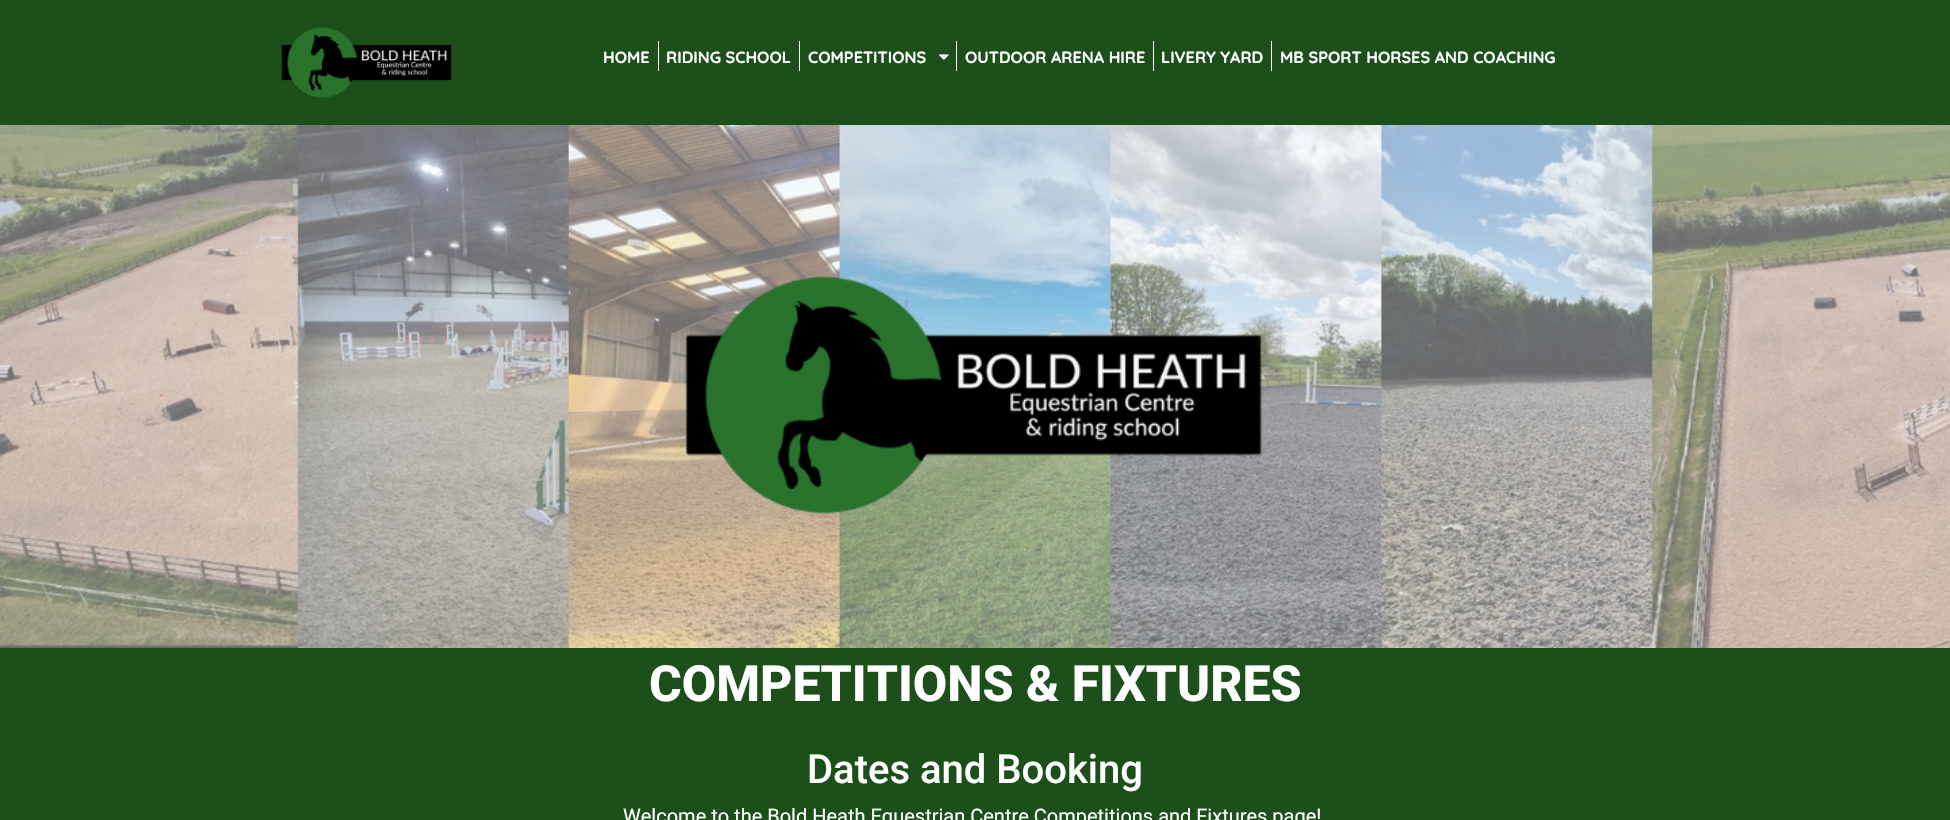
#include "include/core/SkBlurTypes.h"
#include "include/core/SkCanvas.h"
#include "include/core/SkData.h"
#include "include/core/SkFont.h"
#include "include/core/SkFontMgr.h"
#include "include/core/SkImage.h"
#include "include/core/SkMaskFilter.h"
#include "include/core/SkPaint.h"
#include "include/core/SkPathBuilder.h"
#include "include/core/SkTextBlob.h"
#include "include/effects/SkDashPathEffect.h"
#include "include/effects/SkGradientShader.h"
#include "include/utils/SkParsePath.h"

extern sk_sp<SkFontMgr> fontMgr;

static SkFont font(const char* family, int weight, float size, bool italic = false) {
    SkFontStyle style(weight, SkFontStyle::kNormal_Width,
        italic ? SkFontStyle::kItalic_Slant : SkFontStyle::kUpright_Slant);
    SkFont result(fontMgr->matchFamilyStyle(family, style), size);
    result.setSubpixel(true);
    return result;
}

static void drawLabel(SkCanvas* canvas, const char* s, float x, float y, const SkFont& font, SkColor color) {
    SkPaint ink(SkColor4f::FromColor(color));
    ink.setAntiAlias(true);
    canvas->drawString(s, x, y, font, ink);
}

static void fillRect(SkCanvas* canvas, float x, float y, float w, float h, SkColor color) {
    SkPaint ink(SkColor4f::FromColor(color));
    ink.setAntiAlias(true);
    canvas->drawRect(SkRect::MakeXYWH(x, y, w, h), ink);
}

static void drawPhoto(SkCanvas* canvas, const char* path, float x, float y, float w, float h) {
    auto image = SkImages::DeferredFromEncodedData(SkData::MakeFromFileName(path));
    canvas->drawImageRect(image, SkRect::MakeXYWH(x, y, w, h), SkSamplingOptions());
}

void draw(SkCanvas* canvas) {
    SkPaint paint;
    paint.setAntiAlias(true);
    canvas->clear(0xFF1C4F1A);
    drawPhoto(canvas, "assets/img1.png", 281, 27, 171, 71);
    SkFont font1 = font("Quicksand", 700, 16.25f);
    drawLabel(canvas, "HOME", 603, 63, font1, 0xFFFFFFFF);
    fillRect(canvas, 658, 41, 1, 30, 0xFFFFFFFF);
    drawLabel(canvas, "RIDING SCHOOL", 666, 63, font1, 0xFFFFFFFF);
    fillRect(canvas, 799, 41, 1, 30, 0xFFFFFFFF);
    drawLabel(canvas, "COMPETITIONS", 808, 63, font1, 0xFFFFFFFF);
    drawPhoto(canvas, "assets/img2.png", 939, 54, 10, 6);
    fillRect(canvas, 956, 41, 1, 30, 0xFFFFFFFF);
    drawLabel(canvas, "OUTDOOR ARENA HIRE", 965, 63, font1, 0xFFFFFFFF);
    fillRect(canvas, 1153, 41, 1, 30, 0xFFFFFFFF);
    drawLabel(canvas, "LIVERY YARD", 1161, 63, font1, 0xFFFFFFFF);
    fillRect(canvas, 1271, 41, 1, 30, 0xFFFFFFFF);
    drawLabel(canvas, "MB SPORT HORSES AND COACHING", 1280, 63, font1, 0xFFFFFFFF);
    drawPhoto(canvas, "assets/img3.png", 0, 125, 1950, 523);
    SkFont font2 = font("Roboto", 800, 50);
    drawLabel(canvas, "COMPETITIONS & FIXTURES", 649, 701, font2, 0xFFFFFFFF);
    SkFont font3 = font("Roboto", 500, 40);
    drawLabel(canvas, "Dates and Booking", 807, 783, font3, 0xFFFFFFFF);
    SkFont font4 = font("Roboto", 400, 20);
    drawLabel(canvas, "Welcome to the Bold Heath Equestrian Centre Competitions and Fixtures page!", 623, 823, font4, 0xFFFFFFFF);
}
